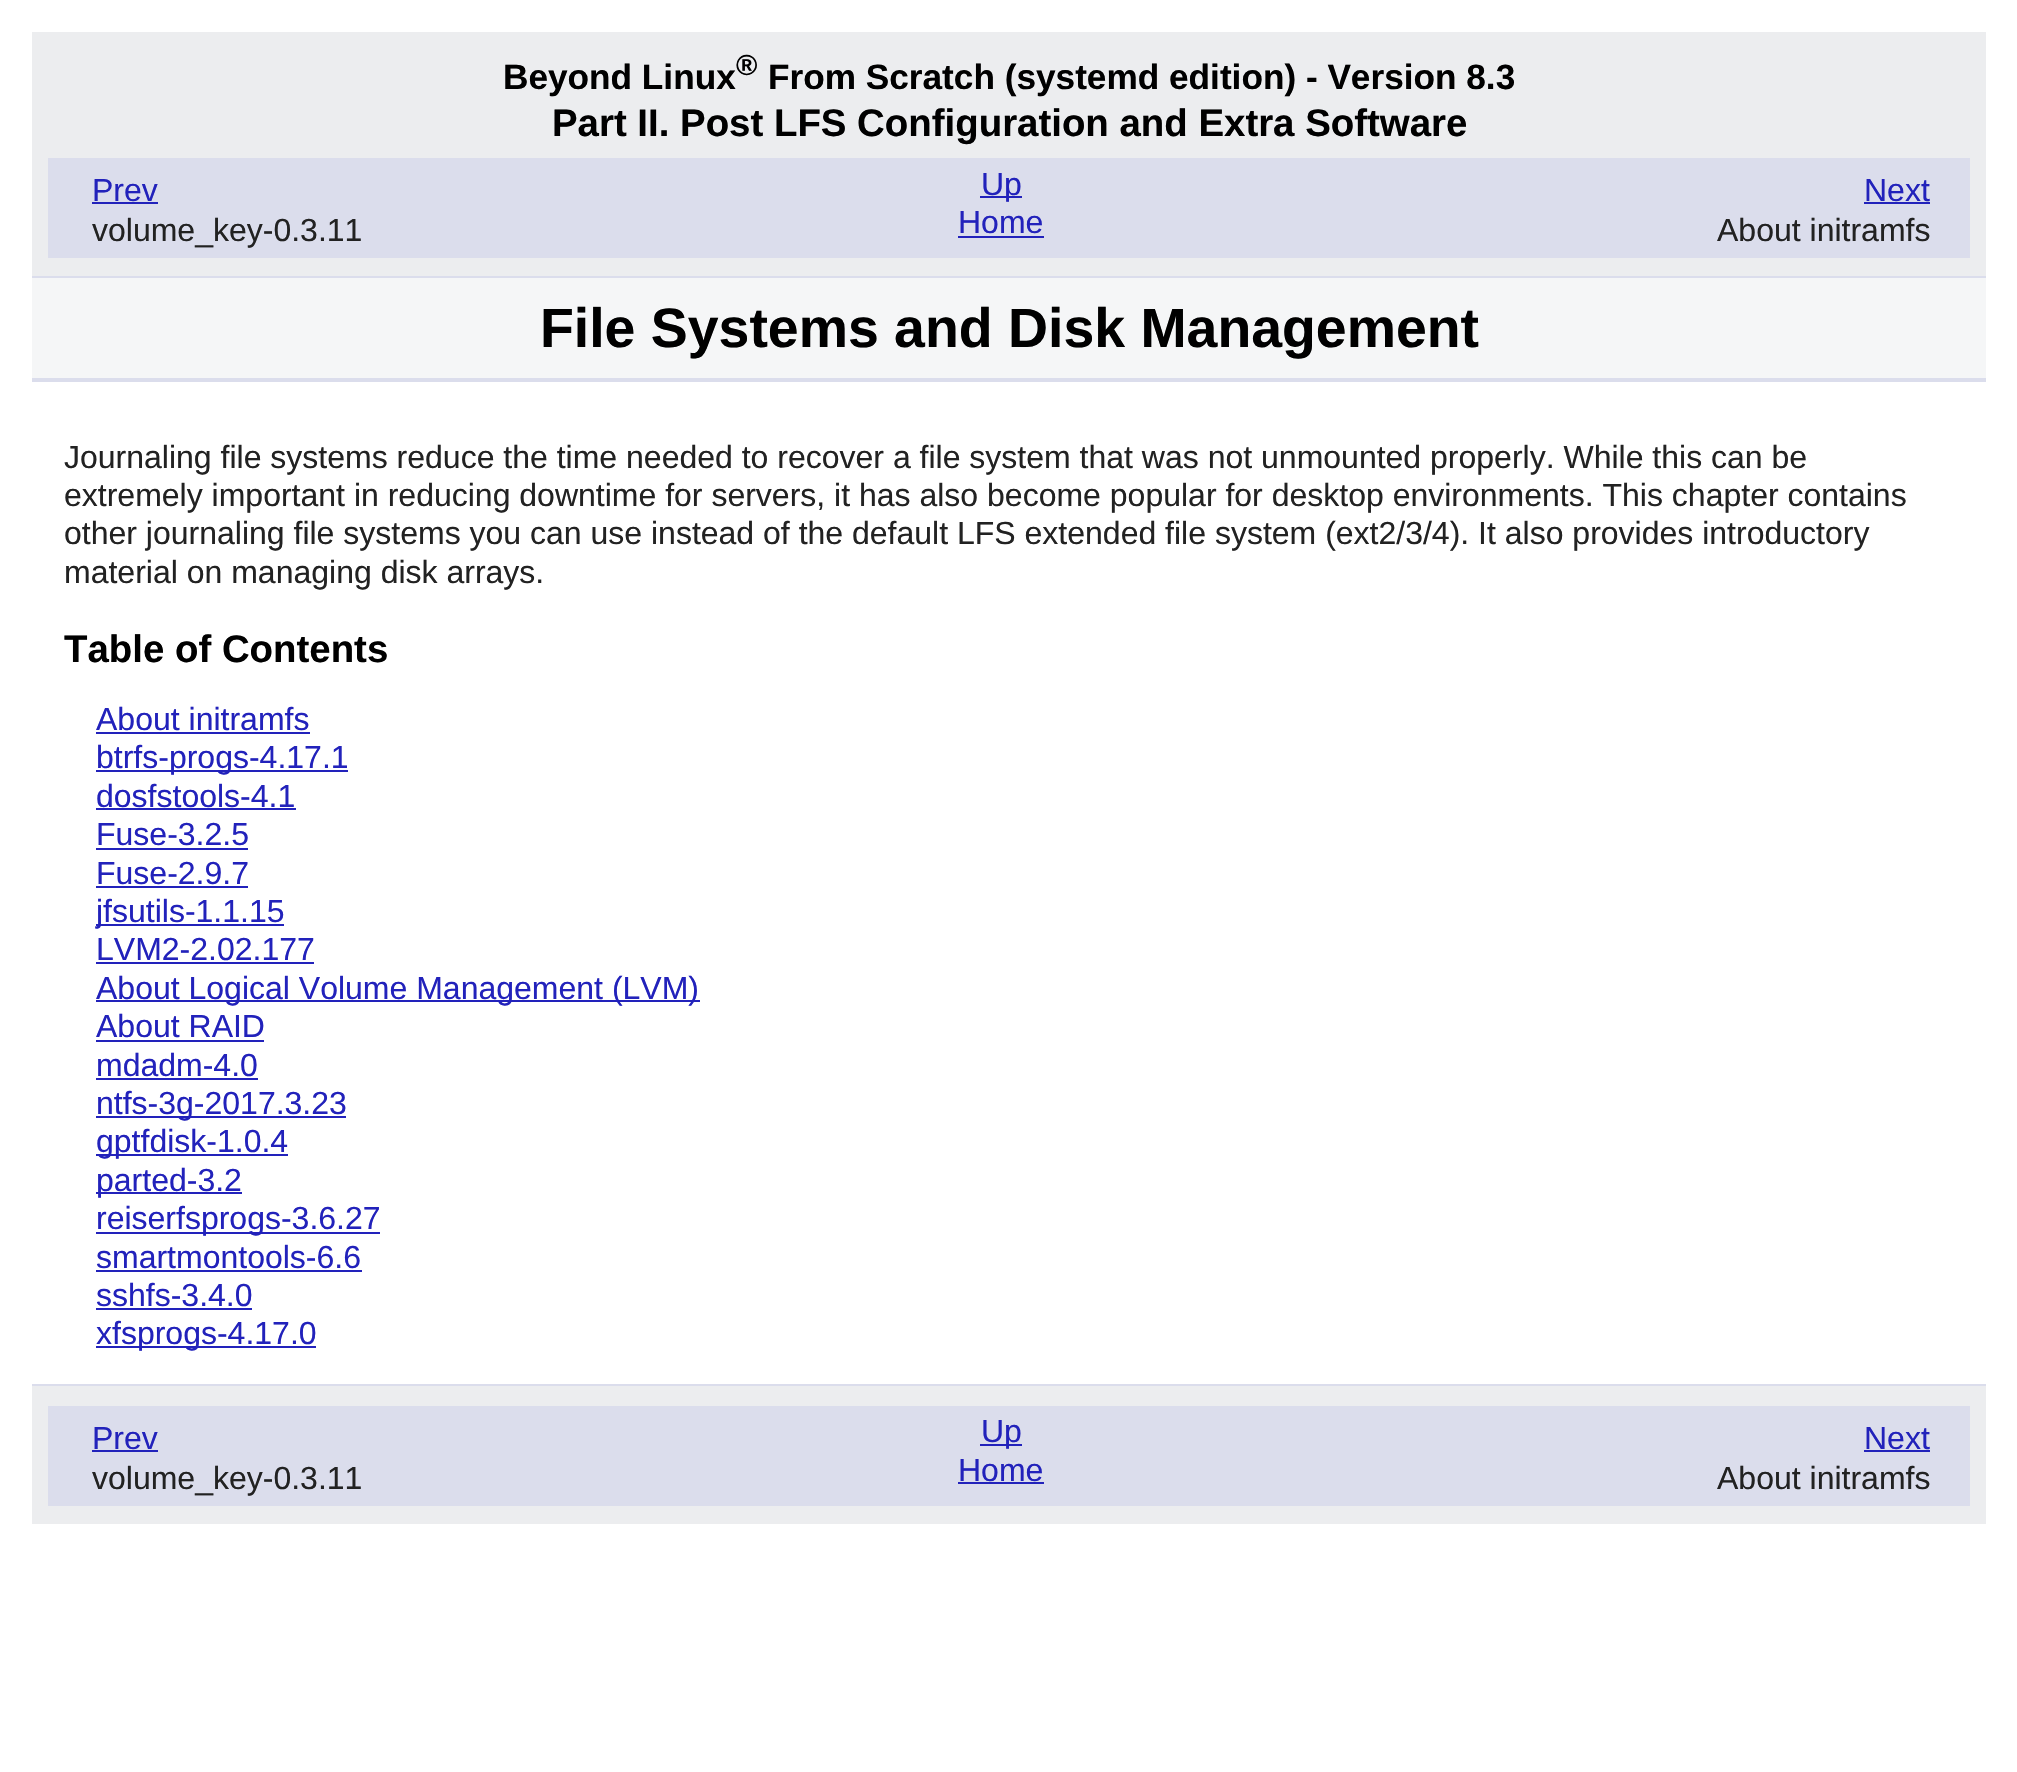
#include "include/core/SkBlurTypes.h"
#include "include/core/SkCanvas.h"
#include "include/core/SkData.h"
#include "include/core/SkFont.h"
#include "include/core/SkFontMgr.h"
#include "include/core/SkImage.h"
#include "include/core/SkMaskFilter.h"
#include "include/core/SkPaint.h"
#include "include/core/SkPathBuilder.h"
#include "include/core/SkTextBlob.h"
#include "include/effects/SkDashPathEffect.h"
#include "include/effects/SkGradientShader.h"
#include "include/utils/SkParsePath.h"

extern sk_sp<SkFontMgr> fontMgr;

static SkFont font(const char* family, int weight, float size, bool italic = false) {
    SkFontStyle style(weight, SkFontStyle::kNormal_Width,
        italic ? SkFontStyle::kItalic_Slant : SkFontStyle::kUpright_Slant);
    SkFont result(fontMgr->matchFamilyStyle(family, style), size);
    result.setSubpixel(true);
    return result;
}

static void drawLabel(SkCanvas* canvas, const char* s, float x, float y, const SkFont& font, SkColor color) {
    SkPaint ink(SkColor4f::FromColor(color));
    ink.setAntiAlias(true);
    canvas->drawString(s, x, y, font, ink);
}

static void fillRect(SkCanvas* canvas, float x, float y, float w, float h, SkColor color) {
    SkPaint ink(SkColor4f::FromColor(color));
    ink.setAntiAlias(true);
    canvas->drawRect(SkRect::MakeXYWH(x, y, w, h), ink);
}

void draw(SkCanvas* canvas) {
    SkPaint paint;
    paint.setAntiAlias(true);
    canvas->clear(0xFFFFFFFF);
    fillRect(canvas, 32, 32, 1954, 244, 0xFFECEDEF);
    fillRect(canvas, 32, 276, 1954, 2, 0xFFDBDDEC);
    SkFont font1 = font("Liberation Sans", 700, 35.2f);
    drawLabel(canvas, "Beyond Linux", 503, 89, font1, 0xFF000000);
    SkFont font2 = font("Liberation Sans", 700, 29);
    drawLabel(canvas, "®", 736, 75, font2, 0xFF000000);
    drawLabel(canvas, "From Scratch (systemd edition) - Version 8.3", 768, 89, font1, 0xFF000000);
    SkFont font3 = font("Liberation Sans", 700, 38.4f);
    drawLabel(canvas, "Part II. Post LFS Configuration and Extra Software", 552, 136, font3, 0xFF000000);
    fillRect(canvas, 48, 158, 1922, 100, 0xFFDBDDEC);
    SkFont font4 = font("Liberation Sans", 400, 32);
    drawLabel(canvas, "Prev", 92, 201, font4, 0xFF2222BB);
    fillRect(canvas, 92, 202, 66, 2, 0xFF2222BB);
    drawLabel(canvas, "volume_key-0.3.11", 92, 241, font4, 0xFF222222);
    fillRect(canvas, 980, 196, 42, 2, 0xFF2222BB);
    drawLabel(canvas, "Up", 981, 195, font4, 0xFF2222BB);
    drawLabel(canvas, "Next", 1864, 201, font4, 0xFF2222BB);
    fillRect(canvas, 1864, 202, 66, 2, 0xFF2222BB);
    drawLabel(canvas, "About initramfs", 1717, 241, font4, 0xFF222222);
    drawLabel(canvas, "Home", 958, 233, font4, 0xFF2222BB);
    fillRect(canvas, 958, 236, 86, 2, 0xFF2222BB);
    fillRect(canvas, 32, 278, 1954, 100, 0xFFF5F6F7);
    fillRect(canvas, 32, 378, 1954, 4, 0xFFDBDDEC);
    SkFont font5 = font("Liberation Sans", 700, 55.4f);
    drawLabel(canvas, "File Systems and Disk Management", 540, 347, font5, 0xFF000000);
    drawLabel(canvas, "Journaling file systems reduce the time needed to recover a file system that was not unmounted properly. While this can be", 64, 468, font4, 0xFF222222);
    drawLabel(canvas, "extremely important in reducing downtime for servers, it has also become popular for desktop environments. This chapter contains", 64, 506, font4, 0xFF222222);
    drawLabel(canvas, "other journaling file systems you can use instead of the default LFS extended file system (ext2/3/4). It also provides introductory", 64, 544, font4, 0xFF222222);
    drawLabel(canvas, "material on managing disk arrays.", 64, 583, font4, 0xFF222222);
    drawLabel(canvas, "Table of Contents", 64, 662, font3, 0xFF000000);
    drawLabel(canvas, "About initramfs", 96, 730, font4, 0xFF2222BB);
    fillRect(canvas, 96, 732, 214, 2, 0xFF2222BB);
    fillRect(canvas, 96, 770, 252, 2, 0xFF2222BB);
    drawLabel(canvas, "btrfs-progs-4.17.1", 96, 768, font4, 0xFF2222BB);
    drawLabel(canvas, "dosfstools-4.1", 96, 807, font4, 0xFF2222BB);
    fillRect(canvas, 96, 808, 200, 2, 0xFF2222BB);
    drawLabel(canvas, "Fuse-3.2.5", 96, 845, font4, 0xFF2222BB);
    fillRect(canvas, 96, 848, 152, 2, 0xFF2222BB);
    drawLabel(canvas, "Fuse-2.9.7", 96, 884, font4, 0xFF2222BB);
    fillRect(canvas, 96, 886, 152, 2, 0xFF2222BB);
    fillRect(canvas, 96, 924, 188, 2, 0xFF2222BB);
    drawLabel(canvas, "jfsutils-1.1.15", 96, 922, font4, 0xFF2222BB);
    drawLabel(canvas, "LVM2-2.02.177", 96, 960, font4, 0xFF2222BB);
    fillRect(canvas, 96, 962, 218, 2, 0xFF2222BB);
    fillRect(canvas, 96, 1000, 604, 2, 0xFF2222BB);
    drawLabel(canvas, "About Logical Volume Management (LVM)", 96, 999, font4, 0xFF2222BB);
    drawLabel(canvas, "About RAID", 96, 1037, font4, 0xFF2222BB);
    fillRect(canvas, 96, 1040, 168, 2, 0xFF2222BB);
    drawLabel(canvas, "mdadm-4.0", 96, 1076, font4, 0xFF2222BB);
    fillRect(canvas, 96, 1078, 162, 2, 0xFF2222BB);
    fillRect(canvas, 96, 1116, 250, 2, 0xFF2222BB);
    drawLabel(canvas, "ntfs-3g-2017.3.23", 96, 1114, font4, 0xFF2222BB);
    fillRect(canvas, 96, 1154, 192, 2, 0xFF2222BB);
    drawLabel(canvas, "gptfdisk-1.0.4", 96, 1152, font4, 0xFF2222BB);
    fillRect(canvas, 96, 1192, 146, 2, 0xFF2222BB);
    drawLabel(canvas, "parted-3.2", 96, 1191, font4, 0xFF2222BB);
    fillRect(canvas, 96, 1232, 284, 2, 0xFF2222BB);
    drawLabel(canvas, "reiserfsprogs-3.6.27", 96, 1229, font4, 0xFF2222BB);
    drawLabel(canvas, "smartmontools-6.6", 96, 1268, font4, 0xFF2222BB);
    fillRect(canvas, 96, 1270, 266, 2, 0xFF2222BB);
    drawLabel(canvas, "sshfs-3.4.0", 96, 1306, font4, 0xFF2222BB);
    fillRect(canvas, 96, 1308, 156, 2, 0xFF2222BB);
    fillRect(canvas, 96, 1346, 220, 2, 0xFF2222BB);
    drawLabel(canvas, "xfsprogs-4.17.0", 96, 1344, font4, 0xFF2222BB);
    fillRect(canvas, 32, 1386, 1954, 138, 0xFFECEDEF);
    fillRect(canvas, 32, 1384, 1954, 2, 0xFFDBDDEC);
    fillRect(canvas, 48, 1406, 1922, 100, 0xFFDBDDEC);
    drawLabel(canvas, "Prev", 92, 1449, font4, 0xFF2222BB);
    fillRect(canvas, 92, 1450, 66, 2, 0xFF2222BB);
    drawLabel(canvas, "volume_key-0.3.11", 92, 1489, font4, 0xFF222222);
    fillRect(canvas, 980, 1444, 42, 2, 0xFF2222BB);
    drawLabel(canvas, "Up", 981, 1442, font4, 0xFF2222BB);
    drawLabel(canvas, "Next", 1864, 1449, font4, 0xFF2222BB);
    fillRect(canvas, 1864, 1450, 66, 2, 0xFF2222BB);
    drawLabel(canvas, "About initramfs", 1717, 1489, font4, 0xFF222222);
    drawLabel(canvas, "Home", 958, 1481, font4, 0xFF2222BB);
    fillRect(canvas, 958, 1482, 86, 2, 0xFF2222BB);
}
